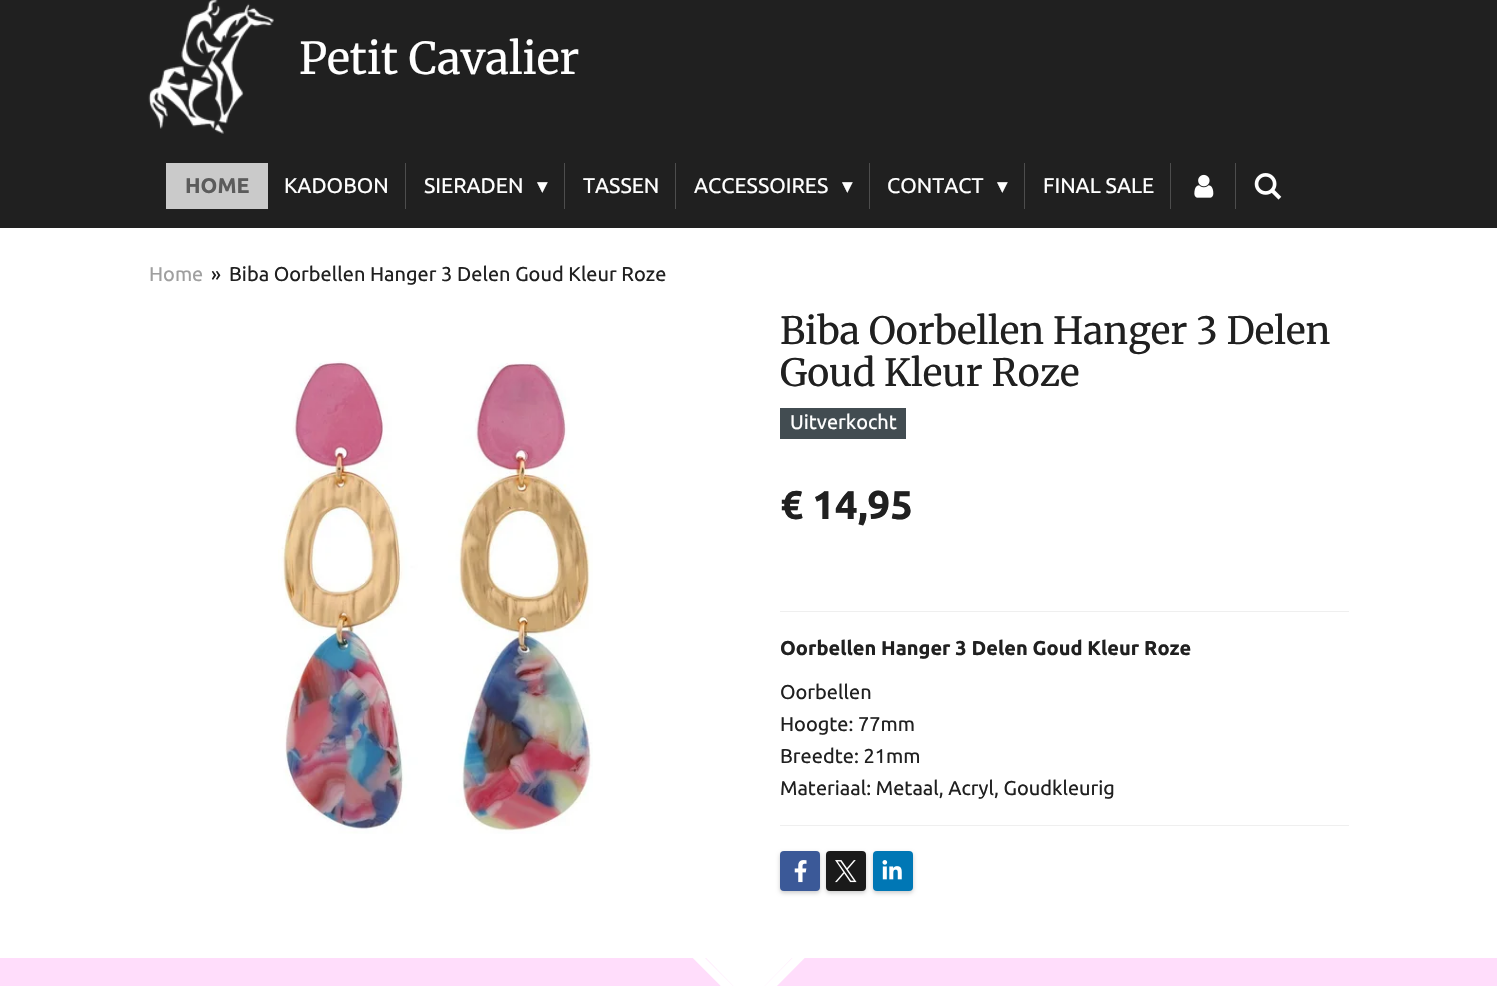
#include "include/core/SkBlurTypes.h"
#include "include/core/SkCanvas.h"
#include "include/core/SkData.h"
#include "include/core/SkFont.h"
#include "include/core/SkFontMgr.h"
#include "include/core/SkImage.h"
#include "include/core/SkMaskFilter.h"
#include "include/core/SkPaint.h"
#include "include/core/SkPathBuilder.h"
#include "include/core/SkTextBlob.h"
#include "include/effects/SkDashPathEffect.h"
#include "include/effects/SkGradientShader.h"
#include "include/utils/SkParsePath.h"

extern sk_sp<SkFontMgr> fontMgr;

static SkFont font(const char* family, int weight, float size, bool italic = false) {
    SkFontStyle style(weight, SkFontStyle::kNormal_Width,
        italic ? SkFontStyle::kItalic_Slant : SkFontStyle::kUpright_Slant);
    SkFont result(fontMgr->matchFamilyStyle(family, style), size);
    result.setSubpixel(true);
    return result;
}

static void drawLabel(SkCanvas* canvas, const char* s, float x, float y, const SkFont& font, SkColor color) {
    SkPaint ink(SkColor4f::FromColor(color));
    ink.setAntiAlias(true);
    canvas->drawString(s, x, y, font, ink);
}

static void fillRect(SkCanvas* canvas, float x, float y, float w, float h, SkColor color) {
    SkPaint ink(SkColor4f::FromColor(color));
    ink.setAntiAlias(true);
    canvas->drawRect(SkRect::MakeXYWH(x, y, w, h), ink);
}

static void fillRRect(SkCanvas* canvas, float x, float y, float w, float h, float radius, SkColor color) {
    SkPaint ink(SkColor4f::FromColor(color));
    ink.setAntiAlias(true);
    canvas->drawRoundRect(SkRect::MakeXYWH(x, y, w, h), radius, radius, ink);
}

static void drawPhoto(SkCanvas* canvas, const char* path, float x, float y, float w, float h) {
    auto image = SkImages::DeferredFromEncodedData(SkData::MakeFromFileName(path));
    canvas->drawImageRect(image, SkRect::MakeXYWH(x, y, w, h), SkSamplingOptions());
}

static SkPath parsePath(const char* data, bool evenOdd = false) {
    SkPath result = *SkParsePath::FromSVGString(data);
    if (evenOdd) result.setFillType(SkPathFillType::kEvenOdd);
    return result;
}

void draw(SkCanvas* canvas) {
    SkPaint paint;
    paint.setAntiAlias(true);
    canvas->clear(0xFFFFFFFF);
    fillRect(canvas, 0, 0, 1497, 228, 0xFF202020);
    drawPhoto(canvas, "assets/img1.png", 148, 0, 126, 134);
    SkFont font1 = font("Merriweather", 400, 43.75f);
    drawLabel(canvas, "Petit Cavalier", 299, 74, font1, 0xFFFFFFFF);
    fillRect(canvas, 166, 163, 102, 46, 0xFFCACACA);
    SkFont font2 = font("Ubuntu", 700, 21.25f);
    drawLabel(canvas, "HOME", 185, 193, font2, 0xFF5B5B5B);
    SkFont font3 = font("Ubuntu", 400, 21.25f);
    drawLabel(canvas, "KADOBON", 284, 193, font3, 0xFFFFFFFF);
    fillRect(canvas, 405, 163, 1, 46, 0xFF4D4D4D);
    drawLabel(canvas, "SIERADEN", 424, 193, font3, 0xFFFFFFFF);
    SkFont font4 = font("DejaVu Sans", 400, 21.25f);
    drawLabel(canvas, "▾", 537, 193, font4, 0xFFFFFFFF);
    fillRect(canvas, 564, 163, 1, 46, 0xFF4D4D4D);
    drawLabel(canvas, "TASSEN", 583, 193, font3, 0xFFFFFFFF);
    fillRect(canvas, 675, 163, 1, 46, 0xFF4D4D4D);
    drawLabel(canvas, "ACCESSOIRES", 694, 193, font3, 0xFFFFFFFF);
    drawLabel(canvas, "▾", 842, 193, font4, 0xFFFFFFFF);
    fillRect(canvas, 869, 163, 1, 46, 0xFF4D4D4D);
    drawLabel(canvas, "CONTACT", 887, 193, font3, 0xFFFFFFFF);
    drawLabel(canvas, "▾", 997, 193, font4, 0xFFFFFFFF);
    fillRect(canvas, 1024, 163, 1, 46, 0xFF4D4D4D);
    drawLabel(canvas, "FINAL SALE", 1043, 193, font3, 0xFFFFFFFF);
    fillRect(canvas, 1170, 163, 1, 46, 0xFF4D4D4D);
    drawPhoto(canvas, "assets/img2.png", 1194, 174, 20, 24);
    fillRect(canvas, 1235, 163, 1, 46, 0xFF4D4D4D);
    drawPhoto(canvas, "assets/img3.png", 1254, 173, 28, 27);
    SkFont font5 = font("Ubuntu", 400, 20);
    drawLabel(canvas, "Home", 149, 281, font5, 0xFF9F9F9F);
    drawLabel(canvas, "»", 211, 281, font5, 0xFF202020);
    drawLabel(canvas, "Biba Oorbellen Hanger 3 Delen Goud Kleur Roze", 229, 281, font5, 0xFF202020);
    drawPhoto(canvas, "assets/img4.png", 278, 361, 315, 473);
    SkFont font6 = font("Merriweather", 400, 37.5f);
    drawLabel(canvas, "Biba Oorbellen Hanger 3 Delen", 780, 344, font6, 0xFF202020);
    drawLabel(canvas, "Goud Kleur Roze", 780, 386, font6, 0xFF202020);
    fillRect(canvas, 780, 408, 126, 31, 0xFF424C51);
    drawLabel(canvas, "Uitverkocht", 790, 429, font5, 0xFFFFFFFF);
    SkFont font7 = font("Ubuntu", 700, 40);
    drawLabel(canvas, "€ 14,95", 780, 519, font7, 0xFF202020);
    fillRect(canvas, 780, 611, 569, 1, 0xFFEFEFEF);
    SkFont font8 = font("Ubuntu", 700, 20);
    drawLabel(canvas, "Oorbellen Hanger 3 Delen Goud Kleur Roze", 780, 655, font8, 0xFF202020);
    drawLabel(canvas, "Oorbellen", 780, 699, font5, 0xFF202020);
    drawLabel(canvas, "Hoogte: 77mm", 780, 731, font5, 0xFF202020);
    drawLabel(canvas, "Breedte: 21mm", 780, 763, font5, 0xFF202020);
    drawLabel(canvas, "Materiaal: Metaal, Acryl, Goudkleurig", 780, 795, font5, 0xFF202020);
    fillRect(canvas, 780, 825, 569, 1, 0xFFEFEFEF);
    paint.setColor(0x33000000);
    paint.setMaskFilter(SkMaskFilter::MakeBlur(kNormal_SkBlurStyle, 2));
    canvas->drawRoundRect(SkRect::MakeXYWH(780, 853, 40, 40), 4, 4, paint);
    paint.setMaskFilter(nullptr);
    fillRRect(canvas, 780, 851, 40, 40, 4, 0xFF3B5998);
    drawPhoto(canvas, "assets/img5.png", 794, 860, 13, 23);
    paint.setMaskFilter(SkMaskFilter::MakeBlur(kNormal_SkBlurStyle, 2));
    canvas->drawRoundRect(SkRect::MakeXYWH(826, 853, 40, 40), 4, 4, paint);
    paint.setMaskFilter(nullptr);
    fillRRect(canvas, 826, 851, 40, 40, 4, 0xFF1A1A1A);
    drawPhoto(canvas, "assets/img6.png", 835, 860, 22, 23);
    paint.setMaskFilter(SkMaskFilter::MakeBlur(kNormal_SkBlurStyle, 2));
    canvas->drawRoundRect(SkRect::MakeXYWH(873, 853, 40, 40), 4, 4, paint);
    paint.setMaskFilter(nullptr);
    fillRRect(canvas, 873, 851, 40, 40, 4, 0xFF0077B5);
    drawPhoto(canvas, "assets/img7.png", 882, 860, 20, 20);
    fillRect(canvas, 0, 958, 1497, 28, 0xFFFFDDFB);
    paint.setColor(0xFFFFFFFF);
    canvas->drawPath(parsePath("M749 913L793 957L749 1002L705 957Z"), paint);
    paint.setStroke(true);
    paint.setStrokeWidth(8.8f);
    canvas->drawPath(parsePath("M749 907L799 957.5L749 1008L698.5 957.5Z"), paint);
}
